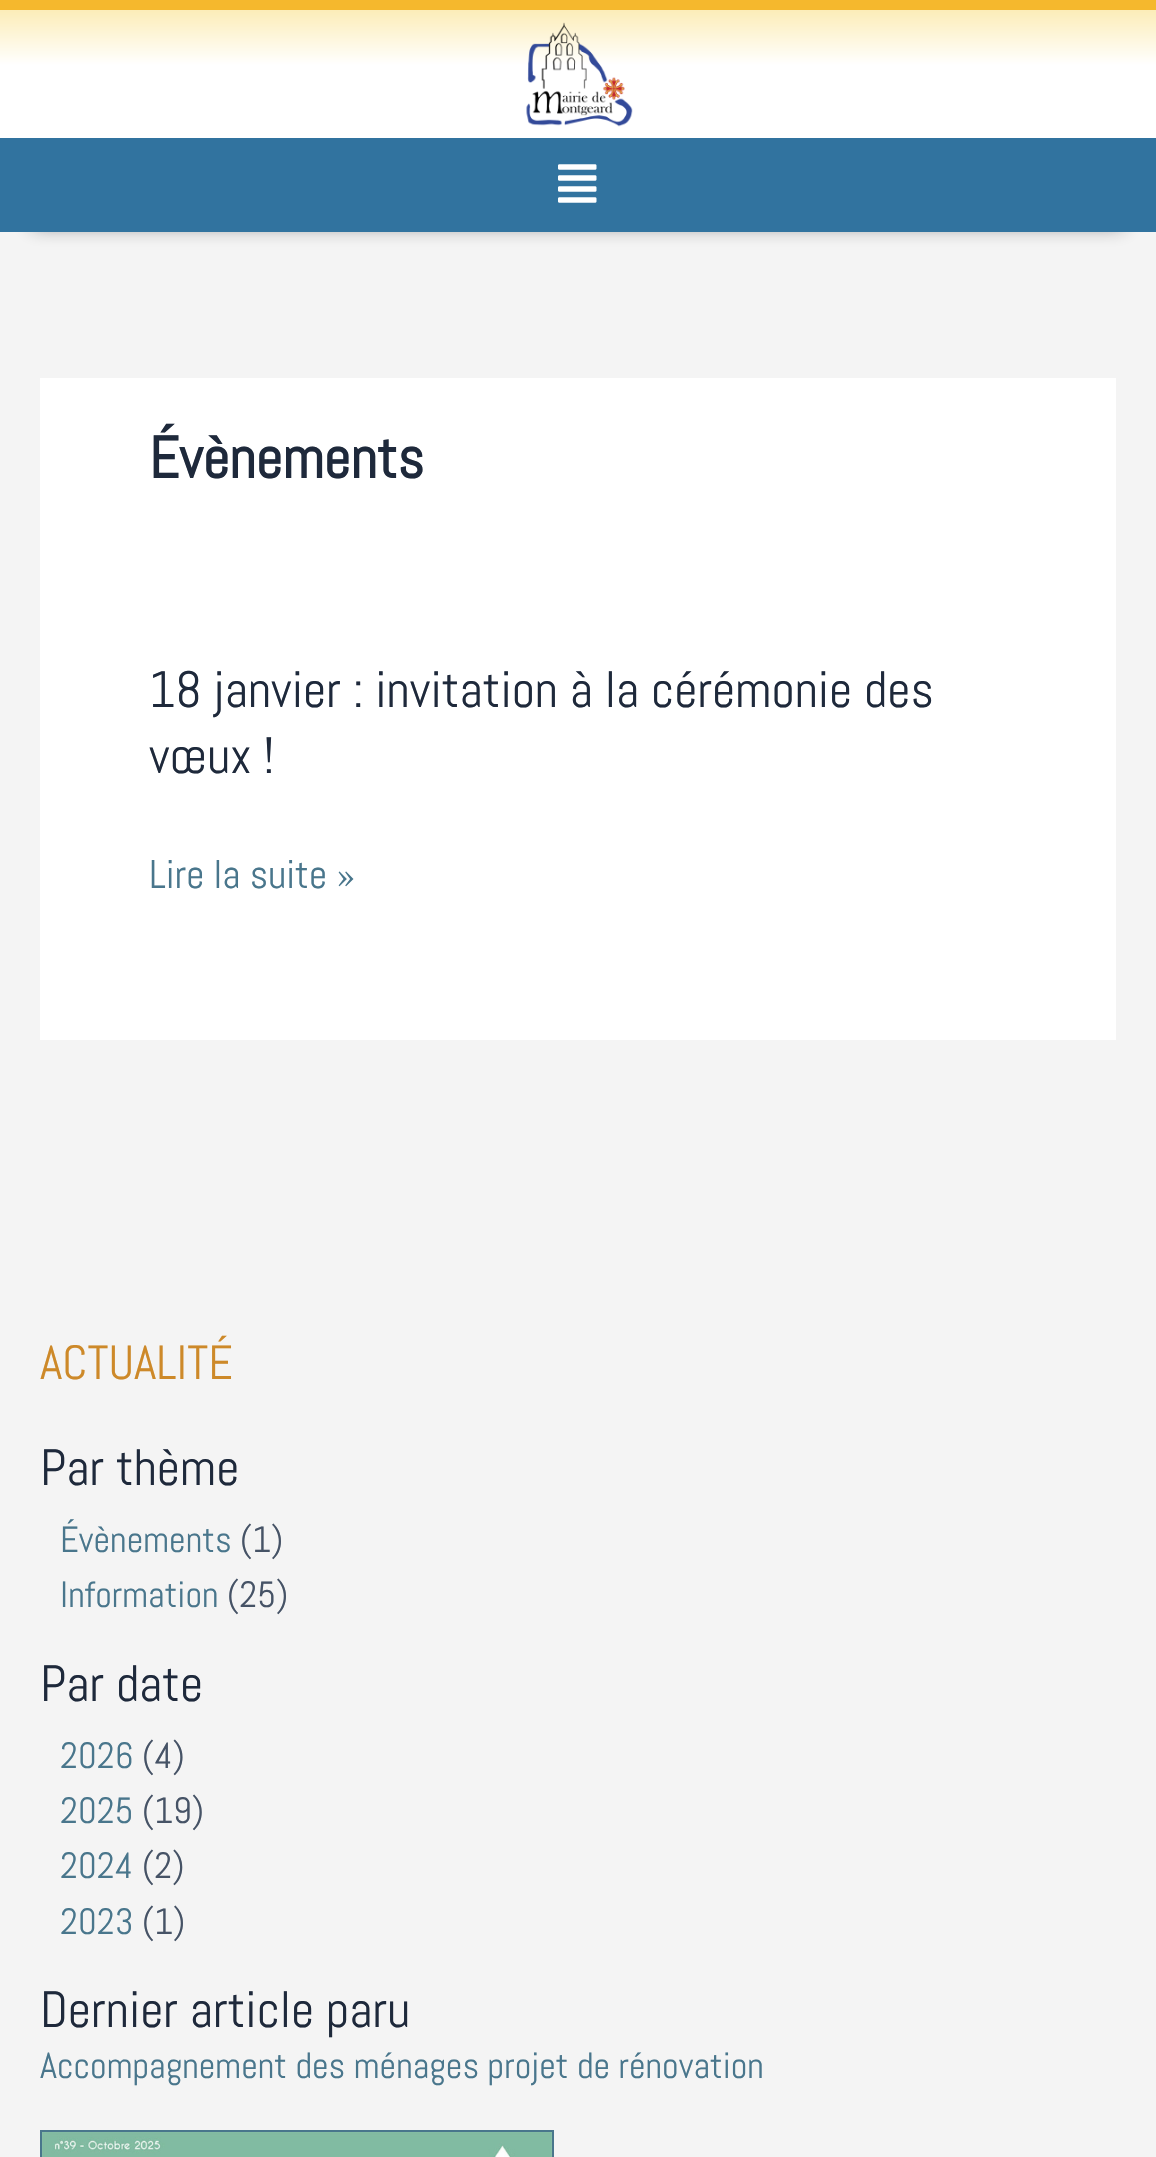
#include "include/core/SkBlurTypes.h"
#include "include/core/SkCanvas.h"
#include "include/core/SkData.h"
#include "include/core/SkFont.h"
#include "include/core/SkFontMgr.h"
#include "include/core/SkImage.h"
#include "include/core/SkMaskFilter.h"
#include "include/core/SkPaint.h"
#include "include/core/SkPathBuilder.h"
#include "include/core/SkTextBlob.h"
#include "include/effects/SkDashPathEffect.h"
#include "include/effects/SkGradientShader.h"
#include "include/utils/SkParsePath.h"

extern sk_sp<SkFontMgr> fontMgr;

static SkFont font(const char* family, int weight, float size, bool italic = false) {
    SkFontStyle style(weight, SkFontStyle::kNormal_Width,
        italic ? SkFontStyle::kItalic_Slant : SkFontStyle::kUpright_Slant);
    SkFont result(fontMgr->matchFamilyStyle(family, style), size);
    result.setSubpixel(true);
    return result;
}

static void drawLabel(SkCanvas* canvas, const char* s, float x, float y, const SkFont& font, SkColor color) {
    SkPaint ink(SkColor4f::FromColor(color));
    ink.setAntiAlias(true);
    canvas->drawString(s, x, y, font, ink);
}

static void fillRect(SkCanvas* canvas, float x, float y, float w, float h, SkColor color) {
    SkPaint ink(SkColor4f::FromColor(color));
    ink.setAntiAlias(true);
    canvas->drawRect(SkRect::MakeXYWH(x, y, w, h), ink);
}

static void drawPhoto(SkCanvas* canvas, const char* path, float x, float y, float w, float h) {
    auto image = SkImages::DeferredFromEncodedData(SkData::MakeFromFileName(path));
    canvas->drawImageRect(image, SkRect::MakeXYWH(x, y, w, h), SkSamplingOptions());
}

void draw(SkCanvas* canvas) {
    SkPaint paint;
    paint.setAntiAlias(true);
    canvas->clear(0xFFF4F4F4);
    {
        const SkColor colors[] = {0xFFFFFFFF, 0xFFFCEDB8};
        const float stops[] = {0.57f, 1};
        const SkPoint ends[] = {{578, 138}, {578, 10}};
        paint.setShader(SkGradientShader::MakeLinear(ends, colors, stops, 2, SkTileMode::kClamp));
        paint.setAlpha(255);
    }
    canvas->drawRect(SkRect::MakeXYWH(0, 10, 1156, 128), paint);
    fillRect(canvas, 0, 0, 1156, 10, 0xFFF5B82D);
    drawPhoto(canvas, "assets/img1.png", 526, 22, 107, 105);
    paint.setShader(nullptr);
    paint.setColor(0x8002070E);
    paint.setMaskFilter(SkMaskFilter::MakeBlur(kNormal_SkBlurStyle, 10));
    canvas->drawRect(SkRect::MakeXYWH(32, 196, 1092, 30), paint);
    paint.setMaskFilter(nullptr);
    fillRect(canvas, 0, 138, 1156, 94, 0xFF31739F);
    drawPhoto(canvas, "assets/img2.png", 558, 164, 39, 39);
    fillRect(canvas, 40, 378, 1076, 662, 0xFFFFFFFF);
    SkFont font1 = font("Abel", 700, 58.5f);
    drawLabel(canvas, "Évènements", 149, 478, font1, 0xFF1E293B);
    SkFont font2 = font("Abel", 400, 51.1f);
    drawLabel(canvas, "18 janvier : invitation à la cérémonie des", 149, 707, font2, 0xFF1E293B);
    drawLabel(canvas, "vœux !", 149, 773, font2, 0xFF1E293B);
    SkFont font3 = font("Abel", 400, 40);
    drawLabel(canvas, "Lire la suite »", 149, 888, font3, 0xFF49768C);
    SkFont font4 = font("Abel", 400, 48);
    drawLabel(canvas, "ACTUALITÉ", 40, 1379, font4, 0xFFCD8929);
    drawLabel(canvas, "Par thème", 40, 1485, font2, 0xFF1E293B);
    SkFont font5 = font("Abel", 400, 36.5f);
    drawLabel(canvas, "Évènements", 60, 1552, font5, 0xFF49768C);
    drawLabel(canvas, "(1)", 240, 1552, font5, 0xFF465366);
    drawLabel(canvas, "Information", 60, 1607, font5, 0xFF49768C);
    drawLabel(canvas, "(25)", 227, 1607, font5, 0xFF465366);
    drawLabel(canvas, "Par date", 40, 1701, font2, 0xFF1E293B);
    drawLabel(canvas, "2026", 60, 1768, font5, 0xFF49768C);
    drawLabel(canvas, "(4)", 142, 1768, font5, 0xFF465366);
    drawLabel(canvas, "2025", 60, 1823, font5, 0xFF49768C);
    drawLabel(canvas, "(19)", 142, 1823, font5, 0xFF465366);
    drawLabel(canvas, "2024", 60, 1878, font5, 0xFF49768C);
    drawLabel(canvas, "(2)", 142, 1878, font5, 0xFF465366);
    drawLabel(canvas, "2023", 60, 1934, font5, 0xFF49768C);
    drawLabel(canvas, "(1)", 142, 1934, font5, 0xFF465366);
    drawLabel(canvas, "Dernier article paru", 40, 2027, font2, 0xFF1E293B);
    drawLabel(canvas, "Accompagnement des ménages projet de rénovation", 40, 2078, font5, 0xFF49768C);
    paint.setStroke(true);
    paint.setStrokeWidth(2);
    paint.setColor(0xFF49768C);
    canvas->drawRect(SkRect::MakeXYWH(41, 2131, 512, 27), paint);
    drawPhoto(canvas, "assets/img3.png", 42, 2132, 510, 25);
}
